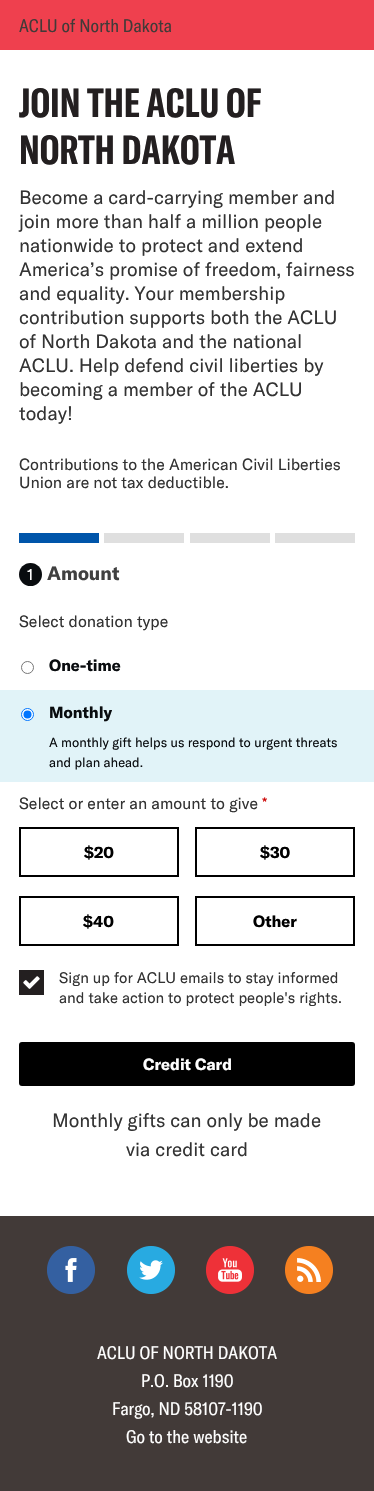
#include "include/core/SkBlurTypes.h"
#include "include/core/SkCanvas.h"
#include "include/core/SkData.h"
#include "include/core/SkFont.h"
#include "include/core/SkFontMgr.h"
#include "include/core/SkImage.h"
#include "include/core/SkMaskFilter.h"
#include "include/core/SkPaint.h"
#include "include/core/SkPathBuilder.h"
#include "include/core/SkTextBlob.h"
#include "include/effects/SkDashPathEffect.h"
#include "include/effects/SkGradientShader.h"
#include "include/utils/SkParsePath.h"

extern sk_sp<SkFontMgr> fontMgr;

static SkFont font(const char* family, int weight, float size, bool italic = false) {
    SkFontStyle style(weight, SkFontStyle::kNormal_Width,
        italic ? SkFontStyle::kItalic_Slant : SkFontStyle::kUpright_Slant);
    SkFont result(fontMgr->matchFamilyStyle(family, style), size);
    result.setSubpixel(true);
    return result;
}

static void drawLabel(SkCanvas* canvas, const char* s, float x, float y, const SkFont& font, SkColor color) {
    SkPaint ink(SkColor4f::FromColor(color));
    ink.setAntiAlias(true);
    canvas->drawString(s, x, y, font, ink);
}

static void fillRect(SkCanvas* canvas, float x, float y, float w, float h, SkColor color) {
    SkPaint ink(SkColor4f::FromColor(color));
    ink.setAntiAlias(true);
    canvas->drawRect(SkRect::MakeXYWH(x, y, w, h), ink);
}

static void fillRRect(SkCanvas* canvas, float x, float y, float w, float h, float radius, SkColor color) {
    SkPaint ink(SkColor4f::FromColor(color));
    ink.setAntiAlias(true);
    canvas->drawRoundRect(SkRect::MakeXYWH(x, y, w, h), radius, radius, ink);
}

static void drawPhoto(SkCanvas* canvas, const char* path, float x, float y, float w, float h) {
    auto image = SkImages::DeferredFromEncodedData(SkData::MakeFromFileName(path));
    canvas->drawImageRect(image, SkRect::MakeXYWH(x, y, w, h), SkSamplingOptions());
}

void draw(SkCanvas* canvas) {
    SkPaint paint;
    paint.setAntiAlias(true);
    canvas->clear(0xFFFFFFFF);
    fillRect(canvas, 0, 0, 374, 50, 0xFFEF404E);
    SkFont font1 = font("GT America", 400, 18);
    drawLabel(canvas, "ACLU of North Dakota", 19, 32, font1, 0xFF423A38);
    canvas->save();
    canvas->clipRect(SkRect::MakeXYWH(19, 79, 336, 432));
    SkFont font2 = font("GT America", 700, 40);
    drawLabel(canvas, "JOIN THE ACLU OF", 19, 117, font2, 0xFF231F20);
    canvas->restore();
    drawLabel(canvas, "NORTH DAKOTA", 19, 164, font2, 0xFF231F20);
    SkFont font3 = font("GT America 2", 400, 19);
    drawLabel(canvas, "Become a card-carrying member and", 19, 204, font3, 0xFF333333);
    drawLabel(canvas, "join more than half a million people", 19, 228, font3, 0xFF333333);
    drawLabel(canvas, "nationwide to protect and extend", 19, 252, font3, 0xFF333333);
    drawLabel(canvas, "America’s promise of freedom, fairness", 19, 276, font3, 0xFF333333);
    drawLabel(canvas, "and equality. Your membership", 19, 300, font3, 0xFF333333);
    drawLabel(canvas, "contribution supports both the ACLU", 19, 324, font3, 0xFF333333);
    drawLabel(canvas, "of North Dakota and the national", 19, 348, font3, 0xFF333333);
    drawLabel(canvas, "ACLU. Help defend civil liberties by", 19, 372, font3, 0xFF333333);
    drawLabel(canvas, "becoming a member of the ACLU", 19, 396, font3, 0xFF333333);
    drawLabel(canvas, "today!", 19, 420, font3, 0xFF333333);
    SkFont font4 = font("GT America 2", 400, 16);
    drawLabel(canvas, "Contributions to the American Civil Liberties", 19, 470, font4, 0xFF333333);
    drawLabel(canvas, "Union are not tax deductible.", 19, 488, font4, 0xFF333333);
    fillRect(canvas, 19, 533, 80, 10, 0xFF0055AA);
    fillRect(canvas, 104, 533, 80, 10, 0xFFDFDFDF);
    fillRect(canvas, 190, 533, 80, 10, 0xFFDFDFDF);
    fillRect(canvas, 275, 533, 80, 10, 0xFFDFDFDF);
    paint.setColor(0xFF090C0F);
    canvas->drawCircle(30.5f, 574.5f, 11.5f, paint);
    drawLabel(canvas, "1", 27, 580, font4, 0xFFFFFFFF);
    SkFont font5 = font("GT America 2", 700, 19);
    drawLabel(canvas, "Amount", 47, 580, font5, 0xFF404040);
    drawLabel(canvas, "Select donation type", 19, 627, font4, 0xFF333333);
    paint.setStroke(true);
    paint.setStrokeWidth(1);
    paint.setColor(0xFF767676);
    canvas->drawCircle(27.5f, 667.5f, 6, paint);
    SkFont font6 = font("GT America 2", 700, 16);
    drawLabel(canvas, "One-time", 49, 671, font6, 0xFF090C0F);
    fillRect(canvas, 0, 690, 374, 92, 0xFFE1F3F8);
    paint.setStroke(false);
    paint.setColor(0xFFFFFFFF);
    canvas->drawCircle(27.5f, 714.5f, 6, paint);
    paint.setStroke(true);
    paint.setColor(0xFF0075FF);
    canvas->drawCircle(27.5f, 714.5f, 6, paint);
    paint.setStroke(false);
    canvas->drawCircle(27.5f, 714.5f, 4, paint);
    drawLabel(canvas, "Monthly", 49, 718, font6, 0xFF090C0F);
    SkFont font7 = font("GT America 2", 400, 13);
    drawLabel(canvas, "A monthly gift helps us respond to urgent threats", 49, 747, font7, 0xFF090C0F);
    drawLabel(canvas, "and plan ahead.", 49, 767, font7, 0xFF090C0F);
    drawLabel(canvas, "Select or enter an amount to give", 19, 809, font4, 0xFF333333);
    drawLabel(canvas, "*", 262, 809, font4, 0xFFCC0000);
    paint.setStroke(true);
    paint.setStrokeWidth(2);
    paint.setColor(0xFF000000);
    canvas->drawRect(SkRect::MakeXYWH(20, 828, 158, 48), paint);
    drawLabel(canvas, "$20", 84, 858, font6, 0xFF000000);
    canvas->drawRect(SkRect::MakeXYWH(196, 828, 158, 48), paint);
    drawLabel(canvas, "$30", 260, 858, font6, 0xFF000000);
    canvas->drawRect(SkRect::MakeXYWH(20, 897, 158, 48), paint);
    drawLabel(canvas, "$40", 83, 927, font6, 0xFF000000);
    canvas->drawRect(SkRect::MakeXYWH(196, 897, 158, 48), paint);
    drawLabel(canvas, "Other", 253, 927, font6, 0xFF000000);
    drawPhoto(canvas, "assets/img1.png", 19, 970, 25, 25);
    SkFont font8 = font("GT America 2", 400, 15);
    drawLabel(canvas, "Sign up for ACLU emails to stay informed", 59, 983, font8, 0xFF333333);
    drawLabel(canvas, "and take action to protect people's rights.", 59, 1003, font8, 0xFF333333);
    fillRRect(canvas, 19, 1042, 336, 44, 3, 0xFF000000);
    drawLabel(canvas, "Credit Card", 143, 1070, font6, 0xFFFFFFFF);
    drawLabel(canvas, "Monthly gifts can only be made", 52, 1127, font3, 0xFF333333);
    drawLabel(canvas, "via credit card", 126, 1156, font3, 0xFF333333);
    fillRect(canvas, 0, 1216, 374, 275, 0xFF423A38);
    drawPhoto(canvas, "assets/img2.png", 47, 1246, 48, 48);
    drawPhoto(canvas, "assets/img3.png", 127, 1246, 48, 48);
    drawPhoto(canvas, "assets/img4.png", 206, 1246, 48, 48);
    drawPhoto(canvas, "assets/img5.png", 285, 1246, 48, 48);
    drawLabel(canvas, "ACLU OF NORTH DAKOTA", 97, 1359, font1, 0xFFFFFFFF);
    drawLabel(canvas, "P.O. Box 1190", 141, 1387, font1, 0xFFFFFFFF);
    drawLabel(canvas, "Fargo, ND 58107-1190", 112, 1415, font1, 0xFFFFFFFF);
    drawLabel(canvas, "Go to the website", 126, 1443, font1, 0xFFFFFFFF);
}
